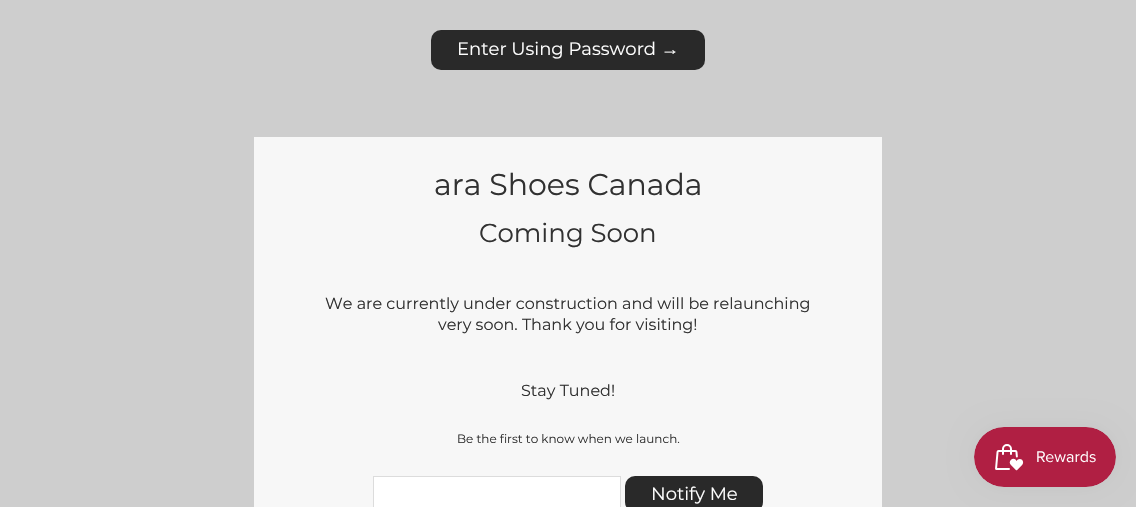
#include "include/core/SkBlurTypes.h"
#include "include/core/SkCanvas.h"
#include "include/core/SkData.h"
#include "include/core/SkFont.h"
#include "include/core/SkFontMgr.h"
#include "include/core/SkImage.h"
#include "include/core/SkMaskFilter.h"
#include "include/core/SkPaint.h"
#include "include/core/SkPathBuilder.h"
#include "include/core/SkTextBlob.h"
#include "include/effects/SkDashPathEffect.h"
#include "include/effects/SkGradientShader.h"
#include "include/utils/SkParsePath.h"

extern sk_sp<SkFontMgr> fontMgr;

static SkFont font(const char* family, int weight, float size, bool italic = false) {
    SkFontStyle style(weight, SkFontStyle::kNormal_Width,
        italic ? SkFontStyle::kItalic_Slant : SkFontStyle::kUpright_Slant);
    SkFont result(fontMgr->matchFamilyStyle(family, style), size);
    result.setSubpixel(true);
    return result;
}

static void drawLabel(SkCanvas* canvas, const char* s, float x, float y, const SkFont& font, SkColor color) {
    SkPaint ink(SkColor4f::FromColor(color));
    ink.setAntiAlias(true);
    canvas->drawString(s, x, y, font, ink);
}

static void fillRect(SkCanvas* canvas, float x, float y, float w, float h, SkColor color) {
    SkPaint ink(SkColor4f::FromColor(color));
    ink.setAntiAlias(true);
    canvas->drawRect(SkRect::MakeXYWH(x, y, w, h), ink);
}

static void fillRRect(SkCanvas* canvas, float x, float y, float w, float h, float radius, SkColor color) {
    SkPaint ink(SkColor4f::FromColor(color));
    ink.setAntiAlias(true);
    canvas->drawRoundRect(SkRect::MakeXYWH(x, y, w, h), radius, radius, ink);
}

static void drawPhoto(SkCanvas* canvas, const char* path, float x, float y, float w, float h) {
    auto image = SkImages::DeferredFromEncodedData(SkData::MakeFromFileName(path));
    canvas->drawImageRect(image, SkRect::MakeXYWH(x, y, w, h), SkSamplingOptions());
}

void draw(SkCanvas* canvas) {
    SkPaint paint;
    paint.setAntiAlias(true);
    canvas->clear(0xFFCECECE);
    fillRRect(canvas, 431, 30, 274, 40, 10, 0xFF292929);
    SkFont font1 = font("Montserrat", 400, 18);
    drawLabel(canvas, "Enter Using Password", 457, 55, font1, 0xFFFFFFFF);
    SkFont font2 = font("Liberation Sans", 400, 18);
    drawLabel(canvas, "→", 661, 55, font2, 0xFFFFFFFF);
    fillRect(canvas, 254, 137, 628, 370, 0xFFF7F7F7);
    SkFont font3 = font("Montserrat", 400, 30);
    drawLabel(canvas, "ara Shoes Canada", 434, 195, font3, 0xFF313131);
    SkFont font4 = font("Montserrat", 400, 26);
    drawLabel(canvas, "Coming Soon", 479, 242, font4, 0xFF313131);
    SkFont font5 = font("Montserrat", 400, 16);
    drawLabel(canvas, "We are currently under construction and will be relaunching", 325, 309, font5, 0xFF313131);
    drawLabel(canvas, "very soon. Thank you for visiting!", 438, 330, font5, 0xFF313131);
    drawLabel(canvas, "Stay Tuned!", 521, 396, font5, 0xFF313131);
    SkFont font6 = font("Montserrat", 400, 12);
    drawLabel(canvas, "Be the first to know when we launch.", 457, 443, font6, 0xFF313131);
    paint.setColor(0xFFFFFFFF);
    canvas->drawRect(SkRect::MakeXYWH(373.5f, 476.5f, 247, 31), paint);
    paint.setStroke(true);
    paint.setStrokeWidth(1);
    paint.setColor(0xFFDCDCDC);
    canvas->drawRect(SkRect::MakeXYWH(373.5f, 476.5f, 247, 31), paint);
    fillRRect(canvas, 625, 476, 138, 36, 10, 0xFF292929);
    drawLabel(canvas, "Notify Me", 651, 500, font1, 0xFFFFFFFF);
    paint.setStroke(false);
    paint.setColor(0x0D000000);
    paint.setMaskFilter(SkMaskFilter::MakeBlur(kNormal_SkBlurStyle, 12.5f));
    canvas->drawRoundRect(SkRect::MakeXYWH(974, 427, 142, 60), 30, 30, paint);
    paint.setMaskFilter(nullptr);
    drawPhoto(canvas, "assets/img1.png", 974, 427, 142, 60);
}
